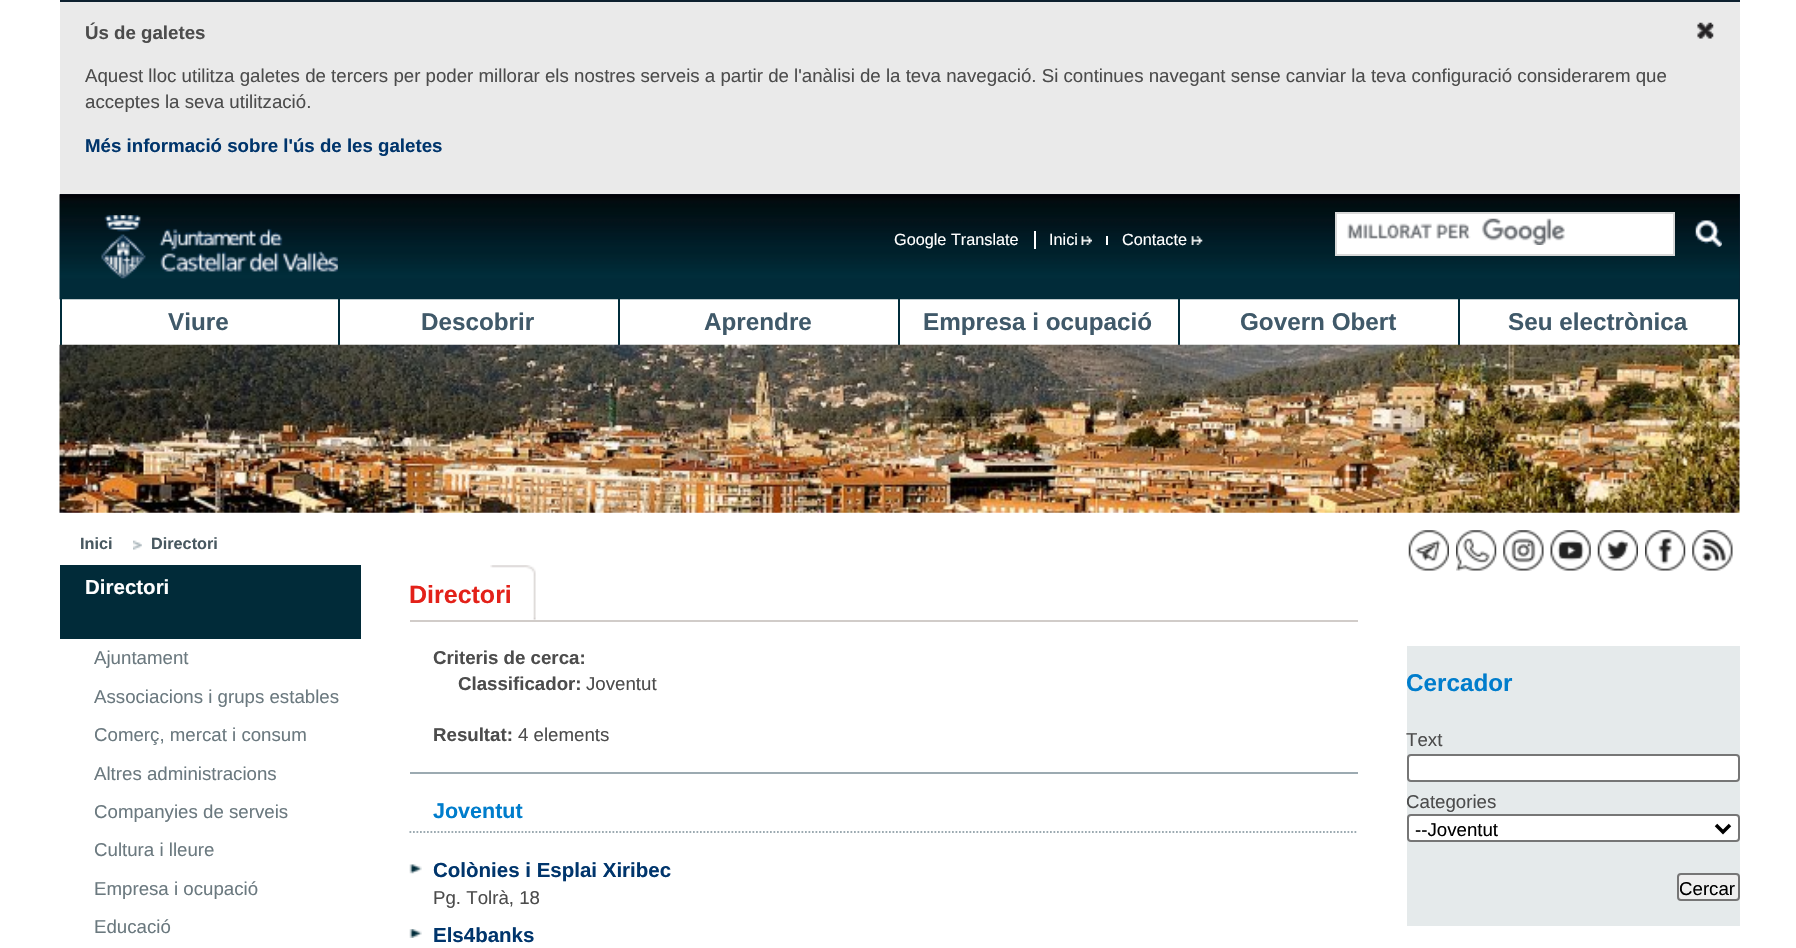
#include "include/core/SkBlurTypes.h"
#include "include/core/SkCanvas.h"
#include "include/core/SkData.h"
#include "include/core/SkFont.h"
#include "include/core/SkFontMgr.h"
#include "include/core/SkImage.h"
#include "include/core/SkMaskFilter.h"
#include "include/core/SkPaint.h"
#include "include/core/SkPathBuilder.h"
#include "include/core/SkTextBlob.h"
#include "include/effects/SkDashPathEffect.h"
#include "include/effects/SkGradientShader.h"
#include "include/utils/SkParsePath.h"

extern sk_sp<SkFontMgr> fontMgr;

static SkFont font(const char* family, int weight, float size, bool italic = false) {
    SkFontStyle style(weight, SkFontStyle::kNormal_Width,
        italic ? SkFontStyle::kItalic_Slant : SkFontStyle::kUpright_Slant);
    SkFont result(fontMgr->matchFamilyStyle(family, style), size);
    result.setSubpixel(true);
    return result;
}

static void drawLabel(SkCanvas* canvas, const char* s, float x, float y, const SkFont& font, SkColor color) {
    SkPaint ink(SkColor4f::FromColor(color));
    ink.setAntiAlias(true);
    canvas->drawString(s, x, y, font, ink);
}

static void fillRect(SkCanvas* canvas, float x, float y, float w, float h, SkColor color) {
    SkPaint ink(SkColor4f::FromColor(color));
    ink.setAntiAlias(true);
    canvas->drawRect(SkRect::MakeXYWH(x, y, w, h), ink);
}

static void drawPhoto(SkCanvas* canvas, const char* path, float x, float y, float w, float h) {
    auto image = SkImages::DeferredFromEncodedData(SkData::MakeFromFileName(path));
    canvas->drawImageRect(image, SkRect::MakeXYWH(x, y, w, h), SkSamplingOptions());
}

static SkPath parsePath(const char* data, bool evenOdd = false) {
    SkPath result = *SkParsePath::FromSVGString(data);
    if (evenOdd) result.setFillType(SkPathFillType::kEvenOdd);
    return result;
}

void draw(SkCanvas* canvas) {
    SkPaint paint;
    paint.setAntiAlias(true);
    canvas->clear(0xFFFFFFFF);
    fillRect(canvas, 60, 2, 1680, 192, 0xFFEAEAEA);
    fillRect(canvas, 60, 0, 1680, 2, 0xFF0D202F);
    SkFont font1 = font("Liberation Sans", 700, 18.68f);
    drawLabel(canvas, "Ús de galetes", 85, 39, font1, 0xFF4C4C4C);
    drawPhoto(canvas, "assets/img1.png", 1697, 22, 17, 17);
    SkFont font2 = font("Liberation Sans", 400, 18.68f);
    drawLabel(canvas, "Aquest lloc utilitza galetes de tercers per poder millorar els nostres serveis a partir de l'anàlisi de la teva navegació. Si continues navegant sense canviar la teva configuració considerarem que", 85, 82, font2, 0xFF4C4C4C);
    drawLabel(canvas, "acceptes la seva utilització.", 85, 108, font2, 0xFF4C4C4C);
    drawLabel(canvas, "Més informació sobre l'ús de les galetes", 85, 152, font1, 0xFF00356C);
    fillRect(canvas, 60, 194, 1680, 105, 0xFF0D202F);
    drawPhoto(canvas, "assets/img2.png", 59, 194, 1681, 106);
    drawPhoto(canvas, "assets/img3.png", 101, 215, 237, 64);
    SkFont font3 = font("Liberation Sans", 400, 16.25f);
    drawLabel(canvas, "Google Translate", 894, 245, font3, 0xFFFFFFFF);
    fillRect(canvas, 1034, 231, 2, 18, 0xFFFFFFFF);
    drawLabel(canvas, "Inici", 1049, 245, font3, 0xFFFFFFFF);
    fillRect(canvas, 1106, 236, 2, 9, 0xFFFFFFFF);
    drawPhoto(canvas, "assets/img4.png", 1081, 236, 11, 9);
    drawLabel(canvas, "Contacte", 1122, 245, font3, 0xFFFFFFFF);
    drawPhoto(canvas, "assets/img5.png", 1191, 236, 12, 9);
    paint.setColor(0xFFFFFFFF);
    canvas->drawRect(SkRect::MakeXYWH(1336, 213, 338, 42), paint);
    paint.setStroke(true);
    paint.setStrokeWidth(2);
    paint.setColor(0xFFD9D9D9);
    canvas->drawRect(SkRect::MakeXYWH(1336, 213, 338, 42), paint);
    drawPhoto(canvas, "assets/img6.png", 1347, 218, 218, 27);
    drawPhoto(canvas, "assets/img7.png", 1695, 220, 27, 27);
    fillRect(canvas, 338, 299, 2, 46, 0xFF002C3A);
    fillRect(canvas, 60, 299, 2, 46, 0xFF002C3A);
    SkFont font4 = font("Liberation Sans", 700, 24.25f);
    drawLabel(canvas, "Viure", 168, 330, font4, 0xFF405969);
    fillRect(canvas, 618, 299, 2, 46, 0xFF002C3A);
    drawLabel(canvas, "Descobrir", 421, 330, font4, 0xFF405969);
    fillRect(canvas, 898, 299, 2, 46, 0xFF002C3A);
    drawLabel(canvas, "Aprendre", 704, 330, font4, 0xFF405969);
    fillRect(canvas, 1178, 299, 2, 46, 0xFF002C3A);
    drawLabel(canvas, "Empresa i ocupació", 923, 330, font4, 0xFF405969);
    fillRect(canvas, 1458, 299, 2, 46, 0xFF002C3A);
    drawLabel(canvas, "Govern Obert", 1240, 330, font4, 0xFF405969);
    fillRect(canvas, 1738, 299, 2, 46, 0xFF002C3A);
    drawLabel(canvas, "Seu electrònica", 1508, 330, font4, 0xFF405969);
    drawPhoto(canvas, "assets/img8.png", 59, 344, 1681, 169);
    SkFont font5 = font("Liberation Sans", 700, 16.25f);
    drawLabel(canvas, "Inici", 80, 549, font5, 0xFF485860);
    drawPhoto(canvas, "assets/img9.png", 133, 540, 9, 10);
    drawLabel(canvas, "Directori", 151, 549, font5, 0xFF485860);
    drawPhoto(canvas, "assets/img10.png", 1408, 530, 41, 41);
    drawPhoto(canvas, "assets/img11.png", 1456, 530, 41, 41);
    drawPhoto(canvas, "assets/img12.png", 1503, 530, 41, 41);
    drawPhoto(canvas, "assets/img13.png", 1550, 530, 41, 41);
    drawPhoto(canvas, "assets/img14.png", 1597, 530, 41, 41);
    drawPhoto(canvas, "assets/img15.png", 1645, 530, 41, 41);
    drawPhoto(canvas, "assets/img16.png", 1692, 530, 41, 41);
    fillRect(canvas, 60, 565, 301, 74, 0xFF012B39);
    SkFont font6 = font("Liberation Sans", 700, 20.5f);
    drawLabel(canvas, "Directori", 85, 594, font6, 0xFFFFFFFF);
    drawLabel(canvas, "Ajuntament", 94, 664, font2, 0xFF6B797F);
    drawLabel(canvas, "Associacions i grups estables", 94, 703, font2, 0xFF6B797F);
    drawLabel(canvas, "Comerç, mercat i consum", 94, 741, font2, 0xFF6B797F);
    drawLabel(canvas, "Altres administracions", 94, 780, font2, 0xFF6B797F);
    drawLabel(canvas, "Companyies de serveis", 94, 818, font2, 0xFF6B797F);
    drawLabel(canvas, "Cultura i lleure", 94, 856, font2, 0xFF6B797F);
    drawLabel(canvas, "Empresa i ocupació", 94, 895, font2, 0xFF6B797F);
    drawLabel(canvas, "Educació", 94, 933, font2, 0xFF6B797F);
    fillRect(canvas, 410, 620, 948, 2, 0xFFD1CCC9);
    drawPhoto(canvas, "assets/img17.png", 490, 565, 46, 55);
    SkFont font7 = font("Liberation Sans", 700, 25);
    drawLabel(canvas, "Directori", 409, 603, font7, 0xFFE32119);
    fillRect(canvas, 410, 772, 948, 2, 0xFF9CAAB1);
    drawLabel(canvas, "Criteris de cerca:", 433, 664, font1, 0xFF4C4C4C);
    drawLabel(canvas, "Classificador:", 458, 690, font1, 0xFF4C4C4C);
    drawLabel(canvas, "Joventut", 586, 690, font2, 0xFF4C4C4C);
    drawLabel(canvas, "Resultat:", 433, 741, font1, 0xFF4C4C4C);
    drawLabel(canvas, "4 elements", 518, 741, font2, 0xFF4C4C4C);
    paint.setStrokeWidth(1.8f);
    paint.setColor(0xFF9CAAB1);
    paint.setPathEffect(SkDashPathEffect::Make({{1.75f, 1.75f}}, 0));
    canvas->drawPath(parsePath("M409.5 832H1358"), paint);
    paint.setPathEffect(nullptr);
    SkFont font8 = font("Liberation Sans", 700, 21.5f);
    drawLabel(canvas, "Joventut", 433, 818, font8, 0xFF007DCC);
    drawPhoto(canvas, "assets/img18.png", 409, 864, 13, 10);
    drawLabel(canvas, "Colònies i Esplai Xiribec", 433, 877, font6, 0xFF00356C);
    drawLabel(canvas, "Pg. Tolrà, 18", 433, 904, font2, 0xFF4C4C4C);
    drawPhoto(canvas, "assets/img19.png", 409, 929, 13, 9);
    drawLabel(canvas, "Els4banks", 433, 942, font6, 0xFF00356C);
    fillRect(canvas, 1407, 646, 333, 280, 0xFFE5EAEB);
    drawLabel(canvas, "Cercador", 1406, 691, font4, 0xFF007DCC);
    drawLabel(canvas, "Text", 1406, 746, font2, 0xFF4C4C4C);
    paint.setStroke(false);
    paint.setColor(0xFFFFFFFF);
    canvas->drawRoundRect(SkRect::MakeXYWH(1408, 755, 331, 26), 3, 3, paint);
    paint.setStroke(true);
    paint.setStrokeWidth(2);
    paint.setColor(0xFF767676);
    canvas->drawRoundRect(SkRect::MakeXYWH(1408, 755, 331, 26), 3, 3, paint);
    drawLabel(canvas, "Categories", 1406, 808, font2, 0xFF4C4C4C);
    paint.setStroke(false);
    paint.setColor(0xFFFFFFFF);
    canvas->drawRoundRect(SkRect::MakeXYWH(1408, 815, 331, 26), 3, 3, paint);
    paint.setStroke(true);
    paint.setColor(0xFF767676);
    canvas->drawRoundRect(SkRect::MakeXYWH(1408, 815, 331, 26), 3, 3, paint);
    paint.setStrokeWidth(3.5f);
    paint.setColor(0xFF000000);
    canvas->drawPath(parsePath("M1716 825L1723 832L1730 825"), paint);
    drawLabel(canvas, "--Joventut", 1415, 836, font2, 0xFF000000);
    paint.setStroke(false);
    paint.setColor(0xFFEFEFEF);
    canvas->drawRoundRect(SkRect::MakeXYWH(1678, 874, 61, 26), 3, 3, paint);
    paint.setStroke(true);
    paint.setStrokeWidth(2);
    paint.setColor(0xFF767676);
    canvas->drawRoundRect(SkRect::MakeXYWH(1678, 874, 61, 26), 3, 3, paint);
    drawLabel(canvas, "Cercar", 1679, 895, font2, 0xFF000000);
}
